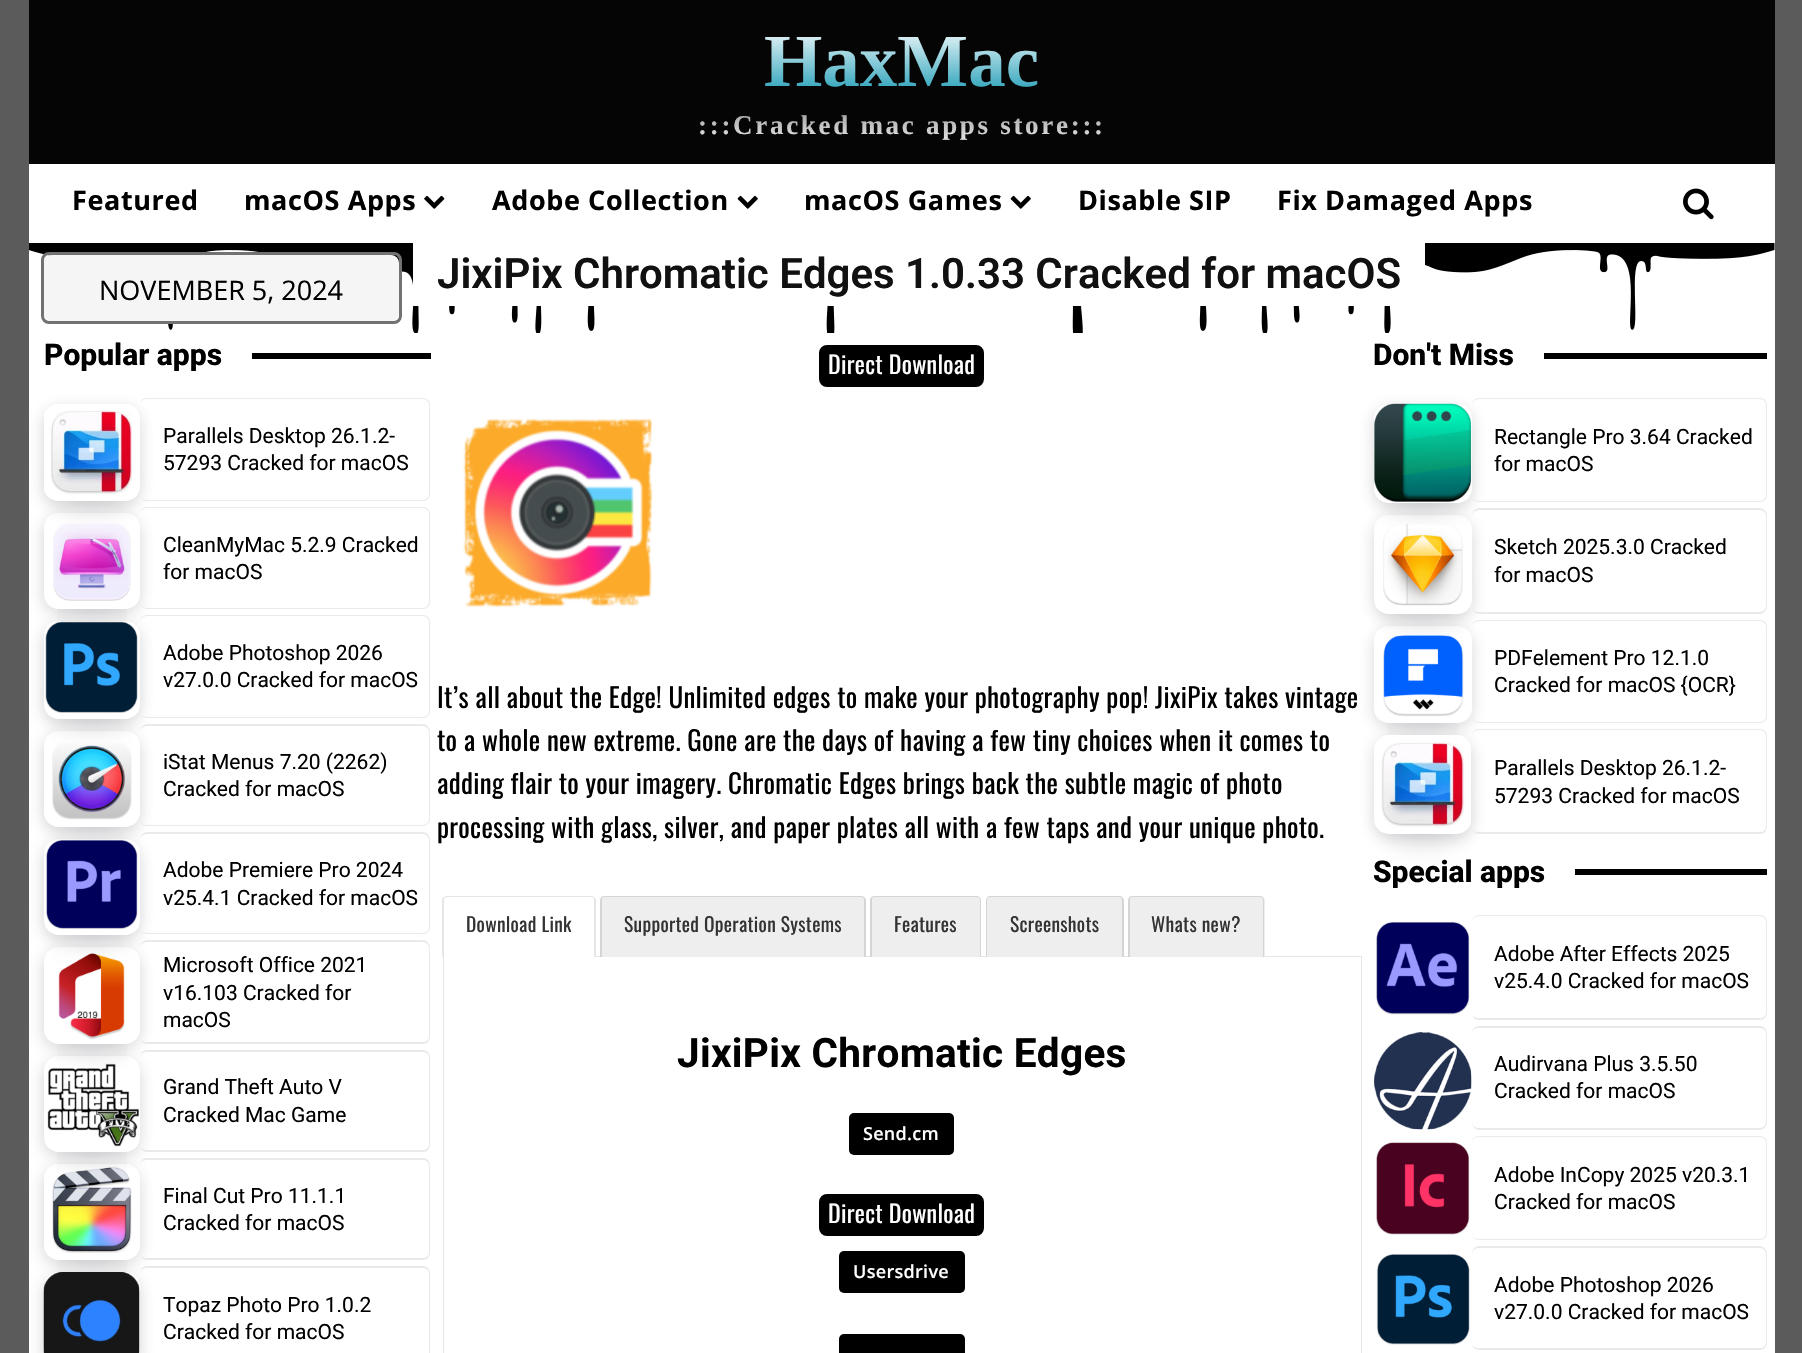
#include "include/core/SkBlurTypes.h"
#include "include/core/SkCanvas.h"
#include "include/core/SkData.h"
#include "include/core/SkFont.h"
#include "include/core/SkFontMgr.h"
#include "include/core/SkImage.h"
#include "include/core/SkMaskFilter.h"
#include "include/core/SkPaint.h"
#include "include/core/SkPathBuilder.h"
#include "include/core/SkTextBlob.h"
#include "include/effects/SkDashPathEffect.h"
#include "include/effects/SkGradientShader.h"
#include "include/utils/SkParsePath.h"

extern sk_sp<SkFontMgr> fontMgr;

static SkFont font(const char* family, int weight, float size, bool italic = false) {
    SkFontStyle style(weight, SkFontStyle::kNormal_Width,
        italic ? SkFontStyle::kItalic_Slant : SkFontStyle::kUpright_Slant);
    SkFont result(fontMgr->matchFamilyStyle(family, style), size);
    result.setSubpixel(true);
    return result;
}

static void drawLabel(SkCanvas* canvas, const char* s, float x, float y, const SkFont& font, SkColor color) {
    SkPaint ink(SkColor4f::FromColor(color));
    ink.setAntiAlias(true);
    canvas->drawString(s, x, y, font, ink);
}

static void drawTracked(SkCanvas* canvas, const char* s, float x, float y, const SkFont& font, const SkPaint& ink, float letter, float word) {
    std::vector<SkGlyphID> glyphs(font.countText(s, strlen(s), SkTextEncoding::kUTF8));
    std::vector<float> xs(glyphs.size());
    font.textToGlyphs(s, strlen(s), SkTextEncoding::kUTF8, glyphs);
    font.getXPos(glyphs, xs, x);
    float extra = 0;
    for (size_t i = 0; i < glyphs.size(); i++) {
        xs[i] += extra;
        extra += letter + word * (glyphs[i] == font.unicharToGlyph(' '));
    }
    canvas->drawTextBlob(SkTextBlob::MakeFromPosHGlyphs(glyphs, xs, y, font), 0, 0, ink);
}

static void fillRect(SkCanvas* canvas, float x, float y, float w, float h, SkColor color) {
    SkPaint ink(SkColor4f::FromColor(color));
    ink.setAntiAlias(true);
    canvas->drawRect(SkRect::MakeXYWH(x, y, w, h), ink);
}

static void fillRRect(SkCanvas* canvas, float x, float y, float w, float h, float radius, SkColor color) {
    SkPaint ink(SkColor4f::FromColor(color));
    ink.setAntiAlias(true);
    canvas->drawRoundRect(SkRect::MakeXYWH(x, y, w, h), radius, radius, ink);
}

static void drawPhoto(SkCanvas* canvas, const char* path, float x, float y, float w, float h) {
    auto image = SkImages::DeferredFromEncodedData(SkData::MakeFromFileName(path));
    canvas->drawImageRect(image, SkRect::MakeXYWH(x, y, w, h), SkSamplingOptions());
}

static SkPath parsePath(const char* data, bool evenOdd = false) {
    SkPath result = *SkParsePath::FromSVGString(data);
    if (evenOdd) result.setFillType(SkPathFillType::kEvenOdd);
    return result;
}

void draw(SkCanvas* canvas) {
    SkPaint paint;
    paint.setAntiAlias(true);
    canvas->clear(0xFF5B5B5B);
    fillRect(canvas, 29, 0, 1746, 164, 0xFF050505);
    SkFont font1 = font("Liberation Serif", 700, 75);
    {
        const SkColor colors[] = {0xFF1B9BB5, 0xFFFFFFFF};
        const float stops[] = {0, 1};
        const SkPoint ends[] = {{902, 98}, {902, 23}};
        paint.setShader(SkGradientShader::MakeLinear(ends, colors, stops, 2, SkTileMode::kClamp));
        paint.setAlpha(255);
    }
    canvas->drawString("HaxMac", 764, 86, font1, paint);
    SkFont font2 = font("Liberation Serif", 700, 27);
    {
        const SkColor colors[] = {0xFFFFFFFF, 0xFF828282};
        const float stops[] = {0, 1};
        const SkPoint ends[] = {{902, 152}, {902, 98}};
        paint.setShader(SkGradientShader::MakeLinear(ends, colors, stops, 2, SkTileMode::kClamp));
        paint.setAlpha(255);
    }
    drawTracked(canvas, ":::Cracked mac apps store:::", 698, 134, font2, paint, 2.7f, 0);
    fillRect(canvas, 29, 164, 1746, 1189, 0xFFFFFFFF);
    SkFont font3 = font("Open Sans", 700, 27);
    paint.setShader(nullptr);
    paint.setColor(0xFF000000);
    drawTracked(canvas, "Featured", 72, 210, font3, paint, 0.6f, 0);
    drawTracked(canvas, "macOS Apps", 244, 210, font3, paint, 0.6f, 0);
    drawPhoto(canvas, "assets/img1.png", 424, 195, 21, 14);
    drawTracked(canvas, "Adobe Collection", 492, 210, font3, paint, 0.6f, 0);
    drawPhoto(canvas, "assets/img2.png", 737, 195, 21, 14);
    drawTracked(canvas, "macOS Games", 804, 210, font3, paint, 0.6f, 0);
    drawPhoto(canvas, "assets/img2.png", 1010, 195, 21, 14);
    drawTracked(canvas, "Disable SIP", 1078, 210, font3, paint, 0.6f, 0);
    drawTracked(canvas, "Fix Damaged Apps", 1277, 210, font3, paint, 0.6f, 0);
    drawPhoto(canvas, "assets/img3.png", 1683, 188, 31, 32);
    drawPhoto(canvas, "assets/img4.png", 29, 243, 1746, 90);
    paint.setStroke(true);
    paint.setStrokeWidth(3);
    paint.setColor(0xFF727272);
    canvas->drawRoundRect(SkRect::MakeXYWH(42.5f, 253.5f, 358, 69), 6.5f, 6.5f, paint);
    fillRRect(canvas, 44, 255, 355, 66, 8, 0xFFF5F5F5);
    SkFont font4 = font("Open Sans", 400, 27);
    drawLabel(canvas, "NOVEMBER 5, 2024", 99, 300, font4, 0xFF000000);
    fillRect(canvas, 413, 243, 1012, 63, 0xFFFFFFFF);
    SkFont font5 = font("Roboto", 600, 42);
    drawLabel(canvas, "JixiPix Chromatic Edges 1.0.33 Cracked for macOS", 437, 288, font5, 0xFF111111);
    SkFont font6 = font("Roboto", 800, 30);
    drawLabel(canvas, "Popular apps", 44, 365, font6, 0xFF000000);
    fillRect(canvas, 252, 353, 179, 6, 0xFF000000);
    paint.setStroke(false);
    paint.setColor(0x33070A19);
    paint.setMaskFilter(SkMaskFilter::MakeBlur(kNormal_SkBlurStyle, 20));
    canvas->drawRect(SkRect::MakeXYWH(74, 467, 36, 37), paint);
    paint.setMaskFilter(nullptr);
    canvas->save();
    canvas->clipPath(parsePath("M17 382H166V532H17ZM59 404H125C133.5 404 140 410.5 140 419V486C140 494.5 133.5 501 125 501H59C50.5 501 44 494.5 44 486V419C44 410.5 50.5 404 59 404Z", true), true);
    paint.setMaskFilter(SkMaskFilter::MakeBlur(kNormal_SkBlurStyle, 9));
    canvas->drawRoundRect(SkRect::MakeXYWH(45, 410, 93, 94), 14, 14, paint);
    paint.setMaskFilter(nullptr);
    canvas->restore();
    drawPhoto(canvas, "assets/img5.png", 44, 409, 95, 92);
    canvas->save();
    canvas->clipPath(parsePath("M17 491H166V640H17ZM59 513H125C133.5 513 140 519.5 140 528V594C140 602.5 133.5 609 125 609H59C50.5 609 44 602.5 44 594V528C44 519.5 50.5 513 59 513Z", true), true);
    paint.setMaskFilter(SkMaskFilter::MakeBlur(kNormal_SkBlurStyle, 9));
    canvas->drawRoundRect(SkRect::MakeXYWH(45, 519, 93, 93), 14, 14, paint);
    paint.setMaskFilter(nullptr);
    canvas->restore();
    paint.setColor(0xFFEAEAEA);
    canvas->drawPath(parsePath("M147 398H423C427 398 430 401 430 405V494C430 498 427 501 423 501H147C143 501 140 498 140 494V405C140 401 143 398 147 398ZM147 399H423C426 399 429 402 429 405V494C429 497 426 500 423 500H147C143 500 140 497 140 494V405C140 402 143 399 147 399Z", true), paint);
    SkFont font7 = font("Roboto", 400, 21);
    drawLabel(canvas, "Parallels Desktop 26.1.2-", 163, 443, font7, 0xFF000000);
    drawLabel(canvas, "57293 Cracked for macOS", 163, 470, font7, 0xFF000000);
    canvas->save();
    canvas->clipRect(SkRect::MakeXYWH(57, 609, 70, 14));
    paint.setColor(0x33070A19);
    paint.setMaskFilter(SkMaskFilter::MakeBlur(kNormal_SkBlurStyle, 20));
    canvas->drawRect(SkRect::MakeXYWH(74, 576, 36, 36), paint);
    paint.setMaskFilter(nullptr);
    canvas->restore();
    drawPhoto(canvas, "assets/img6.png", 53, 523, 78, 78);
    canvas->save();
    canvas->clipPath(parsePath("M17 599H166V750H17ZM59 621H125C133.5 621 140 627.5 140 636V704C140 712.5 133.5 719 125 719H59C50.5 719 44 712.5 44 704V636C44 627.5 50.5 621 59 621Z", true), true);
    paint.setMaskFilter(SkMaskFilter::MakeBlur(kNormal_SkBlurStyle, 9));
    canvas->drawRoundRect(SkRect::MakeXYWH(45, 627, 93, 95), 14, 14, paint);
    paint.setMaskFilter(nullptr);
    canvas->restore();
    paint.setColor(0xFFEAEAEA);
    canvas->drawPath(parsePath("M147 507H423C427 507 430 510 430 514V602C430 606 427 609 423 609H147C143 609 140 606 140 602V514C140 510 143 507 147 507ZM147 508H423C426 508 429 511 429 514V602C429 605 426 608 423 608H147C143 608 140 605 140 602V514C140 511 143 508 147 508Z", true), paint);
    drawLabel(canvas, "CleanMyMac 5.2.9 Cracked", 163, 552, font7, 0xFF000000);
    drawLabel(canvas, "for macOS", 163, 579, font7, 0xFF000000);
    canvas->save();
    canvas->clipPath(parsePath("M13 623H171V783H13ZM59 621H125C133.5 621 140 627.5 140 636V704C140 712.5 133.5 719 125 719H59C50.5 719 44 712.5 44 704V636C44 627.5 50.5 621 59 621Z", true), true);
    paint.setColor(0x33070A19);
    paint.setMaskFilter(SkMaskFilter::MakeBlur(kNormal_SkBlurStyle, 20));
    canvas->drawRect(SkRect::MakeXYWH(74, 684, 36, 38), paint);
    paint.setMaskFilter(nullptr);
    canvas->restore();
    drawPhoto(canvas, "assets/img7.png", 45, 621, 93, 92);
    canvas->save();
    canvas->clipPath(parsePath("M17 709H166V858H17ZM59 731H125C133.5 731 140 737.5 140 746V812C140 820.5 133.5 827 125 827H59C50.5 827 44 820.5 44 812V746C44 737.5 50.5 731 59 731Z", true), true);
    paint.setMaskFilter(SkMaskFilter::MakeBlur(kNormal_SkBlurStyle, 9));
    canvas->drawRoundRect(SkRect::MakeXYWH(45, 737, 93, 93), 14, 14, paint);
    paint.setMaskFilter(nullptr);
    canvas->restore();
    paint.setColor(0xFFEAEAEA);
    canvas->drawPath(parsePath("M147 615H423C427 615 430 618 430 622V711C430 715 427 718 423 718H147C143 718 140 715 140 711V622C140 618 143 615 147 615ZM147 616H423C426 616 429 619 429 622V711C429 714 426 717 423 717H147C143 717 140 714 140 711V622C140 619 143 616 147 616Z", true), paint);
    drawLabel(canvas, "Adobe Photoshop 2026", 163, 660, font7, 0xFF000000);
    drawLabel(canvas, "v27.0.0 Cracked for macOS", 163, 687, font7, 0xFF000000);
    canvas->save();
    canvas->clipPath(parsePath("M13 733H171V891H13ZM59 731H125C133.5 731 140 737.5 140 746V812C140 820.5 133.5 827 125 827H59C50.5 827 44 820.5 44 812V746C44 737.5 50.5 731 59 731Z", true), true);
    paint.setColor(0x33070A19);
    paint.setMaskFilter(SkMaskFilter::MakeBlur(kNormal_SkBlurStyle, 20));
    canvas->drawRect(SkRect::MakeXYWH(74, 794, 36, 36), paint);
    paint.setMaskFilter(nullptr);
    canvas->restore();
    drawPhoto(canvas, "assets/img8.png", 52, 743, 80, 77);
    canvas->save();
    canvas->clipPath(parsePath("M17 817H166V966H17ZM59 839H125C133.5 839 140 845.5 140 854V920C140 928.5 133.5 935 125 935H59C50.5 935 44 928.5 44 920V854C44 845.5 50.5 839 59 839Z", true), true);
    paint.setMaskFilter(SkMaskFilter::MakeBlur(kNormal_SkBlurStyle, 9));
    canvas->drawRoundRect(SkRect::MakeXYWH(45, 845, 93, 93), 14, 14, paint);
    paint.setMaskFilter(nullptr);
    canvas->restore();
    paint.setColor(0xFFEAEAEA);
    canvas->drawPath(parsePath("M147 724H423C427 724 430 728 430 732V819C430 823 427 826 423 826H147C143 826 140 823 140 819V732C140 728 143 724 147 724ZM147 726H423C426 726 429 729 429 732V819C429 822 426 825 423 825H147C143 825 140 822 140 819V732C140 729 143 726 147 726Z", true), paint);
    drawLabel(canvas, "iStat Menus 7.20 (2262)", 163, 769, font7, 0xFF000000);
    drawLabel(canvas, "Cracked for macOS", 163, 796, font7, 0xFF000000);
    canvas->save();
    canvas->clipPath(parsePath("M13 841H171V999H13ZM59 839H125C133.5 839 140 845.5 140 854V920C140 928.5 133.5 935 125 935H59C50.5 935 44 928.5 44 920V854C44 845.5 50.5 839 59 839Z", true), true);
    paint.setColor(0x33070A19);
    paint.setMaskFilter(SkMaskFilter::MakeBlur(kNormal_SkBlurStyle, 20));
    canvas->drawRect(SkRect::MakeXYWH(74, 902, 36, 36), paint);
    paint.setMaskFilter(nullptr);
    canvas->restore();
    drawPhoto(canvas, "assets/img9.png", 46, 840, 92, 89);
    canvas->save();
    canvas->clipPath(parsePath("M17 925H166V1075H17ZM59 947H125C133.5 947 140 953.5 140 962V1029C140 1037.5 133.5 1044 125 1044H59C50.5 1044 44 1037.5 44 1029V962C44 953.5 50.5 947 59 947Z", true), true);
    paint.setMaskFilter(SkMaskFilter::MakeBlur(kNormal_SkBlurStyle, 9));
    canvas->drawRoundRect(SkRect::MakeXYWH(45, 953, 93, 94), 14, 14, paint);
    paint.setMaskFilter(nullptr);
    canvas->restore();
    paint.setColor(0xFFEAEAEA);
    canvas->drawPath(parsePath("M147 832H423C427 832 430 836 430 840V927C430 931 427 934 423 934H147C143 934 140 931 140 927V840C140 836 143 832 147 832ZM147 834H423C426 834 429 837 429 840V927C429 930 426 933 423 933H147C143 933 140 930 140 927V840C140 837 143 834 147 834Z", true), paint);
    drawLabel(canvas, "Adobe Premiere Pro 2024", 163, 877, font7, 0xFF000000);
    drawLabel(canvas, "v25.4.1 Cracked for macOS", 163, 905, font7, 0xFF000000);
    canvas->save();
    canvas->clipRect(SkRect::MakeXYWH(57, 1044, 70, 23));
    paint.setColor(0x33070A19);
    paint.setMaskFilter(SkMaskFilter::MakeBlur(kNormal_SkBlurStyle, 20));
    canvas->drawRect(SkRect::MakeXYWH(74, 1010, 36, 37), paint);
    paint.setMaskFilter(nullptr);
    canvas->restore();
    drawPhoto(canvas, "assets/img10.png", 58, 953, 67, 87);
    canvas->save();
    canvas->clipPath(parsePath("M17 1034H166V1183H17ZM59 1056H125C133.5 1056 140 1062.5 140 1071V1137C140 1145.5 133.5 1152 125 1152H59C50.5 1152 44 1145.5 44 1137V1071C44 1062.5 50.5 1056 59 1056Z", true), true);
    paint.setMaskFilter(SkMaskFilter::MakeBlur(kNormal_SkBlurStyle, 9));
    canvas->drawRoundRect(SkRect::MakeXYWH(45, 1062, 93, 93), 14, 14, paint);
    paint.setMaskFilter(nullptr);
    canvas->restore();
    paint.setColor(0xFFEAEAEA);
    canvas->drawPath(parsePath("M147 940H423C427 940 430 944 430 948V1036C430 1041 427 1044 423 1044H147C143 1044 140 1041 140 1036V948C140 944 143 940 147 940ZM147 942H423C426 942 429 945 429 948V1036C429 1040 426 1042 423 1042H147C143 1042 140 1040 140 1036V948C140 945 143 942 147 942Z", true), paint);
    drawLabel(canvas, "Microsoft Office 2021", 163, 972, font7, 0xFF000000);
    drawLabel(canvas, "v16.103 Cracked for", 163, 1000, font7, 0xFF000000);
    drawLabel(canvas, "macOS", 163, 1027, font7, 0xFF000000);
    canvas->save();
    canvas->clipRect(SkRect::MakeXYWH(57, 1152, 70, 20));
    paint.setColor(0x33070A19);
    paint.setMaskFilter(SkMaskFilter::MakeBlur(kNormal_SkBlurStyle, 20));
    canvas->drawRect(SkRect::MakeXYWH(74, 1119, 36, 36), paint);
    paint.setMaskFilter(nullptr);
    canvas->restore();
    drawPhoto(canvas, "assets/img11.png", 47, 1063, 92, 84);
    canvas->save();
    canvas->clipPath(parsePath("M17 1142H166V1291H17ZM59 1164H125C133.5 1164 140 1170.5 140 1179V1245C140 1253.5 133.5 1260 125 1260H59C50.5 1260 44 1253.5 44 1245V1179C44 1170.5 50.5 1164 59 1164Z", true), true);
    paint.setMaskFilter(SkMaskFilter::MakeBlur(kNormal_SkBlurStyle, 9));
    canvas->drawRoundRect(SkRect::MakeXYWH(45, 1170, 93, 93), 14, 14, paint);
    paint.setMaskFilter(nullptr);
    canvas->restore();
    paint.setColor(0xFFEAEAEA);
    canvas->drawPath(parsePath("M147 1050H423C427 1050 430 1053 430 1058V1144C430 1149 427 1152 423 1152H147C143 1152 140 1149 140 1144V1058C140 1053 143 1050 147 1050ZM147 1052H423C426 1052 429 1054 429 1058V1144C429 1148 426 1150 423 1150H147C143 1150 140 1148 140 1144V1058C140 1054 143 1052 147 1052Z", true), paint);
    drawLabel(canvas, "Grand Theft Auto V", 163, 1094, font7, 0xFF000000);
    drawLabel(canvas, "Cracked Mac Game", 163, 1122, font7, 0xFF000000);
    canvas->save();
    canvas->clipRect(SkRect::MakeXYWH(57, 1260, 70, 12));
    paint.setColor(0x33070A19);
    paint.setMaskFilter(SkMaskFilter::MakeBlur(kNormal_SkBlurStyle, 20));
    canvas->drawRect(SkRect::MakeXYWH(74, 1227, 36, 36), paint);
    paint.setMaskFilter(nullptr);
    canvas->restore();
    drawPhoto(canvas, "assets/img12.png", 52, 1167, 80, 86);
    canvas->save();
    canvas->clipPath(parsePath("M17 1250H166V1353H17ZM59 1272H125C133.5 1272 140 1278.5 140 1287V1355C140 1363.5 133.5 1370 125 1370H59C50.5 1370 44 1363.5 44 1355V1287C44 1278.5 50.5 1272 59 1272Z", true), true);
    paint.setMaskFilter(SkMaskFilter::MakeBlur(kNormal_SkBlurStyle, 9));
    canvas->drawRoundRect(SkRect::MakeXYWH(45, 1278, 93, 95), 14, 14, paint);
    paint.setMaskFilter(nullptr);
    canvas->restore();
    paint.setColor(0xFFEAEAEA);
    canvas->drawPath(parsePath("M147 1158H423C427 1158 430 1161 430 1166V1252C430 1257 427 1260 423 1260H147C143 1260 140 1257 140 1252V1166C140 1161 143 1158 147 1158ZM147 1160H423C426 1160 429 1162 429 1166V1252C429 1256 426 1258 423 1258H147C143 1258 140 1256 140 1252V1166C140 1162 143 1160 147 1160Z", true), paint);
    drawLabel(canvas, "Final Cut Pro 11.1.1", 163, 1203, font7, 0xFF000000);
    drawLabel(canvas, "Cracked for macOS", 163, 1230, font7, 0xFF000000);
    drawPhoto(canvas, "assets/img13.png", 43, 1272, 97, 81);
    canvas->drawPath(parsePath("M147 1266H423C427 1266 430 1269 430 1274V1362C430 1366 427 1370 423 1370H147C143 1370 140 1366 140 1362V1274C140 1269 143 1266 147 1266ZM147 1268H423C426 1268 429 1270 429 1274V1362C429 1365 426 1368 423 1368H147C143 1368 140 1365 140 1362V1274C140 1270 143 1268 147 1268Z", true), paint);
    drawLabel(canvas, "Topaz Photo Pro 1.0.2", 163, 1312, font7, 0xFF000000);
    drawLabel(canvas, "Cracked for macOS", 163, 1339, font7, 0xFF000000);
    paint.setColor(0xFF000000);
    canvas->drawRoundRect(SkRect::MakeXYWH(820, 346, 163, 40), 7, 7, paint);
    paint.setStroke(true);
    paint.setStrokeWidth(2);
    canvas->drawRoundRect(SkRect::MakeXYWH(820, 346, 163, 40), 7, 7, paint);
    SkFont font8 = font("Oswald", 400, 24);
    paint.setStroke(false);
    paint.setColor(0xFFFFFFFF);
    drawTracked(canvas, "Direct Download", 828, 374, font8, paint, 0.3f, 0);
    drawPhoto(canvas, "assets/img14.png", 463, 418, 190, 190);
    SkFont font9 = font("Oswald", 400, 27);
    paint.setColor(0xFF000000);
    drawTracked(canvas, "It’s all about the Edge! Unlimited edges to make your photography pop! JixiPix takes vintage", 437, 708, font9, paint, 0.3f, 0);
    drawTracked(canvas, "to a whole new extreme. Gone are the days of having a few tiny choices when it comes to", 437, 751, font9, paint, 0.3f, 0);
    drawTracked(canvas, "adding flair to your imagery. Chromatic Edges brings back the subtle magic of photo", 437, 794, font9, paint, 0.3f, 0);
    drawTracked(canvas, "processing with glass, silver, and paper plates all with a few taps and your unique photo.", 437, 838, font9, paint, 0.3f, 0);
    paint.setStroke(true);
    paint.setColor(0xFFE6E6E6);
    canvas->drawRect(SkRect::MakeXYWH(444, 957, 917, 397), paint);
    paint.setStroke(false);
    paint.setColor(0xFFFFFFFF);
    canvas->drawPath(parsePath("M448 896H591C594 896 596 898 596 901V957H443V901C443 898 445 896 448 896Z"), paint);
    paint.setColor(0xFFE6E6E6);
    canvas->drawPath(parsePath("M447 896H591C593 896 596 898 596 900V957H442V900C442 898 445 896 447 896ZM447 897H591C593 897 594 898 594 900V957H444V900C444 898 445 897 447 897Z", true), paint);
    SkFont font10 = font("Oswald", 400, 19.5f);
    paint.setColor(0xFF333333);
    drawTracked(canvas, "Download Link", 466, 932, font10, paint, 0.3f, 0);
    paint.setColor(0xFFEEEEEE);
    canvas->drawPath(parsePath("M605 896H861C864 896 866 898 866 901V957H600V901C600 898 602 896 605 896Z"), paint);
    paint.setColor(0x1A000000);
    canvas->drawPath(parsePath("M604 896H861C863 896 866 898 866 900V957H600V900C600 898 602 896 604 896ZM604 897H861C863 897 864 898 864 900V957H602V900C602 898 603 897 604 897Z", true), paint);
    paint.setColor(0xFF333333);
    drawTracked(canvas, "Supported Operation Systems", 624, 932, font10, paint, 0.3f, 0);
    paint.setColor(0xFFEEEEEE);
    canvas->drawPath(parsePath("M875 896H976C979 896 981 898 981 901V957H870V901C870 898 872 896 875 896Z"), paint);
    paint.setColor(0x1A000000);
    canvas->drawPath(parsePath("M874 896H976C979 896 981 898 981 900V957H870V900C870 898 872 896 874 896ZM874 897H976C978 897 980 898 980 900V957H872V900C872 898 873 897 874 897Z", true), paint);
    paint.setColor(0xFF333333);
    drawTracked(canvas, "Features", 894, 932, font10, paint, 0.3f, 0);
    paint.setColor(0xFFEEEEEE);
    canvas->drawPath(parsePath("M991 896H1119C1122 896 1124 898 1124 901V957H986V901C986 898 988 896 991 896Z"), paint);
    paint.setColor(0x1A000000);
    canvas->drawPath(parsePath("M990 896H1119C1121 896 1124 898 1124 900V957H986V900C986 898 988 896 990 896ZM990 897H1119C1121 897 1122 898 1122 900V957H987V900C987 898 988 897 990 897Z", true), paint);
    paint.setColor(0xFF333333);
    drawTracked(canvas, "Screenshots", 1010, 932, font10, paint, 0.3f, 0);
    paint.setColor(0xFFEEEEEE);
    canvas->drawPath(parsePath("M1133 896H1260C1263 896 1265 898 1265 901V957H1128V901C1128 898 1130 896 1133 896Z"), paint);
    paint.setColor(0x1A000000);
    canvas->drawPath(parsePath("M1132 896H1260C1262 896 1264 898 1264 900V957H1128V900C1128 898 1130 896 1132 896ZM1132 897H1260C1262 897 1263 898 1263 900V957H1130V900C1130 898 1131 897 1132 897Z", true), paint);
    paint.setColor(0xFF333333);
    drawTracked(canvas, "Whats new?", 1151, 932, font10, paint, 0.3f, 0);
    fillRect(canvas, 444, 957, 917, 396, 0xFFFFFFFF);
    SkFont font11 = font("Roboto", 700, 40.5f);
    paint.setColor(0xFF000000);
    drawTracked(canvas, "JixiPix Chromatic Edges", 677, 1067, font11, paint, 0.3f, 0);
    fillRRect(canvas, 849, 1113, 105, 42, 5, 0xFF000000);
    SkFont font12 = font("Open Sans", 600, 18);
    paint.setColor(0xFFFFFFFF);
    drawTracked(canvas, "Send.cm", 863, 1140, font12, paint, 0.3f, 0);
    paint.setColor(0xFF000000);
    canvas->drawRoundRect(SkRect::MakeXYWH(820, 1195, 163, 40), 7, 7, paint);
    paint.setStroke(true);
    canvas->drawRoundRect(SkRect::MakeXYWH(820, 1195, 163, 40), 7, 7, paint);
    paint.setStroke(false);
    paint.setColor(0xFFFFFFFF);
    drawTracked(canvas, "Direct Download", 828, 1223, font8, paint, 0.3f, 0);
    fillRRect(canvas, 839, 1251, 126, 42, 5, 0xFF000000);
    drawTracked(canvas, "Usersdrive", 853, 1278, font12, paint, 0.3f, 0);
    fillRRect(canvas, 839, 1334, 126, 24, 5, 0xFF000000);
    drawLabel(canvas, "Don't Miss", 1373, 365, font6, 0xFF000000);
    fillRect(canvas, 1544, 353, 223, 6, 0xFF000000);
    canvas->save();
    canvas->clipPath(parsePath("M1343 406H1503V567H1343ZM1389 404H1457C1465.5 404 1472 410.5 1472 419V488C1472 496.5 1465.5 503 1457 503H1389C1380.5 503 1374 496.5 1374 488V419C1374 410.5 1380.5 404 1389 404Z", true), true);
    paint.setColor(0x33070A19);
    paint.setMaskFilter(SkMaskFilter::MakeBlur(kNormal_SkBlurStyle, 20));
    canvas->drawRect(SkRect::MakeXYWH(1404, 467, 38, 39), paint);
    paint.setMaskFilter(nullptr);
    canvas->restore();
    canvas->save();
    canvas->clipPath(parsePath("M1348 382H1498V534H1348ZM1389 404H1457C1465.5 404 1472 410.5 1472 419V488C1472 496.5 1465.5 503 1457 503H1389C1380.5 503 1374 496.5 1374 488V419C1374 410.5 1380.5 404 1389 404Z", true), true);
    paint.setMaskFilter(SkMaskFilter::MakeBlur(kNormal_SkBlurStyle, 9));
    canvas->drawRoundRect(SkRect::MakeXYWH(1376, 410, 94, 96), 14, 14, paint);
    paint.setMaskFilter(nullptr);
    canvas->restore();
    drawPhoto(canvas, "assets/img15.png", 1374, 403, 98, 99);
    canvas->save();
    canvas->clipPath(parsePath("M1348 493H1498V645H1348ZM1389 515H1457C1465.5 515 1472 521.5 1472 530V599C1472 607.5 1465.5 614 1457 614H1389C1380.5 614 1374 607.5 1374 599V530C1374 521.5 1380.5 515 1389 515Z", true), true);
    paint.setMaskFilter(SkMaskFilter::MakeBlur(kNormal_SkBlurStyle, 9));
    canvas->drawRoundRect(SkRect::MakeXYWH(1376, 521, 94, 96), 14, 14, paint);
    paint.setMaskFilter(nullptr);
    canvas->restore();
    paint.setColor(0xFFEAEAEA);
    canvas->drawPath(parsePath("M1479 398H1760C1764 398 1767 401 1767 405V495C1767 499 1764 502 1760 502H1479C1475 502 1472 499 1472 495V405C1472 401 1475 398 1479 398ZM1479 399H1760C1763 399 1766 402 1766 405V495C1766 498 1763 501 1760 501H1479C1475 501 1472 498 1472 495V405C1472 402 1475 399 1479 399Z", true), paint);
    drawLabel(canvas, "Rectangle Pro 3.64 Cracked", 1494, 444, font7, 0xFF000000);
    drawLabel(canvas, "for macOS", 1494, 471, font7, 0xFF000000);
    canvas->save();
    canvas->clipPath(parsePath("M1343 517H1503V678H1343ZM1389 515H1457C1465.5 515 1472 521.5 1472 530V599C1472 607.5 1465.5 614 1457 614H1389C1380.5 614 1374 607.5 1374 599V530C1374 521.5 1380.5 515 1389 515Z", true), true);
    paint.setColor(0x33070A19);
    paint.setMaskFilter(SkMaskFilter::MakeBlur(kNormal_SkBlurStyle, 20));
    canvas->drawRect(SkRect::MakeXYWH(1404, 578, 38, 39), paint);
    paint.setMaskFilter(nullptr);
    canvas->restore();
    drawPhoto(canvas, "assets/img16.png", 1383, 524, 80, 82);
    canvas->save();
    canvas->clipPath(parsePath("M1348 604H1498V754H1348ZM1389 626H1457C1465.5 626 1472 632.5 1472 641V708C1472 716.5 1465.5 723 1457 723H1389C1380.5 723 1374 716.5 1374 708V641C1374 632.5 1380.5 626 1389 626Z", true), true);
    paint.setMaskFilter(SkMaskFilter::MakeBlur(kNormal_SkBlurStyle, 9));
    canvas->drawRoundRect(SkRect::MakeXYWH(1376, 632, 94, 94), 14, 14, paint);
    paint.setMaskFilter(nullptr);
    canvas->restore();
    paint.setColor(0xFFEAEAEA);
    canvas->drawPath(parsePath("M1479 508H1760C1764 508 1767 512 1767 516V606C1767 610 1764 614 1760 614H1479C1475 614 1472 610 1472 606V516C1472 512 1475 508 1479 508ZM1479 510H1760C1763 510 1766 513 1766 516V606C1766 609 1763 612 1760 612H1479C1475 612 1472 609 1472 606V516C1472 513 1475 510 1479 510Z", true), paint);
    drawLabel(canvas, "Sketch 2025.3.0 Cracked", 1494, 554, font7, 0xFF000000);
    drawLabel(canvas, "for macOS", 1494, 582, font7, 0xFF000000);
    canvas->save();
    canvas->clipRect(SkRect::MakeXYWH(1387, 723, 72, 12));
    paint.setColor(0x33070A19);
    paint.setMaskFilter(SkMaskFilter::MakeBlur(kNormal_SkBlurStyle, 20));
    canvas->drawRect(SkRect::MakeXYWH(1404, 689, 38, 37), paint);
    paint.setMaskFilter(nullptr);
    canvas->restore();
    drawPhoto(canvas, "assets/img17.png", 1383, 635, 81, 82);
    paint.setMaskFilter(SkMaskFilter::MakeBlur(kNormal_SkBlurStyle, 9));
    canvas->drawRoundRect(SkRect::MakeXYWH(1376, 741, 94, 96), 14, 14, paint);
    paint.setMaskFilter(nullptr);
    paint.setColor(0xFFEAEAEA);
    canvas->drawPath(parsePath("M1479 620H1760C1764 620 1767 623 1767 627V716C1767 720 1764 723 1760 723H1479C1475 723 1472 720 1472 716V627C1472 623 1475 620 1479 620ZM1479 621H1760C1763 621 1766 624 1766 627V716C1766 719 1763 722 1760 722H1479C1475 722 1472 719 1472 716V627C1472 624 1475 621 1479 621Z", true), paint);
    drawLabel(canvas, "PDFelement Pro 12.1.0", 1494, 665, font7, 0xFF000000);
    drawLabel(canvas, "Cracked for macOS {OCR}", 1494, 692, font7, 0xFF000000);
    paint.setColor(0x33070A19);
    paint.setMaskFilter(SkMaskFilter::MakeBlur(kNormal_SkBlurStyle, 20));
    canvas->drawRect(SkRect::MakeXYWH(1404, 798, 38, 39), paint);
    paint.setMaskFilter(nullptr);
    drawPhoto(canvas, "assets/img18.png", 1374, 735, 97, 99);
    paint.setColor(0xFFEAEAEA);
    canvas->drawPath(parsePath("M1479 729H1760C1764 729 1767 732 1767 736V826C1767 831 1764 834 1760 834H1479C1475 834 1472 831 1472 826V736C1472 732 1475 729 1479 729ZM1479 730H1760C1763 730 1766 733 1766 736V826C1766 830 1763 832 1760 832H1479C1475 832 1472 830 1472 826V736C1472 733 1475 730 1479 730Z", true), paint);
    drawLabel(canvas, "Parallels Desktop 26.1.2-", 1494, 775, font7, 0xFF000000);
    drawLabel(canvas, "57293 Cracked for macOS", 1494, 803, font7, 0xFF000000);
    drawLabel(canvas, "Special apps", 1373, 882, font6, 0xFF000000);
    fillRect(canvas, 1575, 869, 192, 6, 0xFF000000);
    drawPhoto(canvas, "assets/img19.png", 1376, 922, 94, 93);
    canvas->drawPath(parsePath("M1479 915H1760C1764 915 1767 918 1767 922V1012C1767 1017 1764 1020 1760 1020H1479C1475 1020 1472 1017 1472 1012V922C1472 918 1475 915 1479 915ZM1479 916H1760C1763 916 1766 919 1766 922V1012C1766 1016 1763 1018 1760 1018H1479C1475 1018 1472 1016 1472 1012V922C1472 919 1475 916 1479 916Z", true), paint);
    drawLabel(canvas, "Adobe After Effects 2025", 1494, 961, font7, 0xFF000000);
    drawLabel(canvas, "v25.4.0 Cracked for macOS", 1494, 988, font7, 0xFF000000);
    drawPhoto(canvas, "assets/img20.png", 1374, 1032, 98, 98);
    canvas->drawPath(parsePath("M1479 1026H1760C1764 1026 1767 1029 1767 1034V1122C1767 1126 1764 1130 1760 1130H1479C1475 1130 1472 1126 1472 1122V1034C1472 1029 1475 1026 1479 1026ZM1479 1028H1760C1763 1028 1766 1030 1766 1034V1122C1766 1125 1763 1128 1760 1128H1479C1475 1128 1472 1125 1472 1122V1034C1472 1030 1475 1028 1479 1028Z", true), paint);
    drawLabel(canvas, "Audirvana Plus 3.5.50", 1494, 1071, font7, 0xFF000000);
    drawLabel(canvas, "Cracked for macOS", 1494, 1098, font7, 0xFF000000);
    drawPhoto(canvas, "assets/img21.png", 1376, 1142, 94, 93);
    canvas->drawPath(parsePath("M1479 1136H1760C1764 1136 1767 1139 1767 1143V1233C1767 1237 1764 1240 1760 1240H1479C1475 1240 1472 1237 1472 1233V1143C1472 1139 1475 1136 1479 1136ZM1479 1137H1760C1763 1137 1766 1140 1766 1143V1233C1766 1236 1763 1239 1760 1239H1479C1475 1239 1472 1236 1472 1233V1143C1472 1140 1475 1137 1479 1137Z", true), paint);
    drawLabel(canvas, "Adobe InCopy 2025 v20.3.1", 1494, 1182, font7, 0xFF000000);
    drawLabel(canvas, "Cracked for macOS", 1494, 1209, font7, 0xFF000000);
    drawPhoto(canvas, "assets/img22.png", 1376, 1254, 94, 91);
    canvas->drawPath(parsePath("M1479 1246H1760C1764 1246 1767 1250 1767 1254V1342C1767 1347 1764 1350 1760 1350H1479C1475 1350 1472 1347 1472 1342V1254C1472 1250 1475 1246 1479 1246ZM1479 1248H1760C1763 1248 1766 1251 1766 1254V1342C1766 1346 1763 1348 1760 1348H1479C1475 1348 1472 1346 1472 1342V1254C1472 1251 1475 1248 1479 1248Z", true), paint);
    drawLabel(canvas, "Adobe Photoshop 2026", 1494, 1292, font7, 0xFF000000);
    drawLabel(canvas, "v27.0.0 Cracked for macOS", 1494, 1319, font7, 0xFF000000);
}
